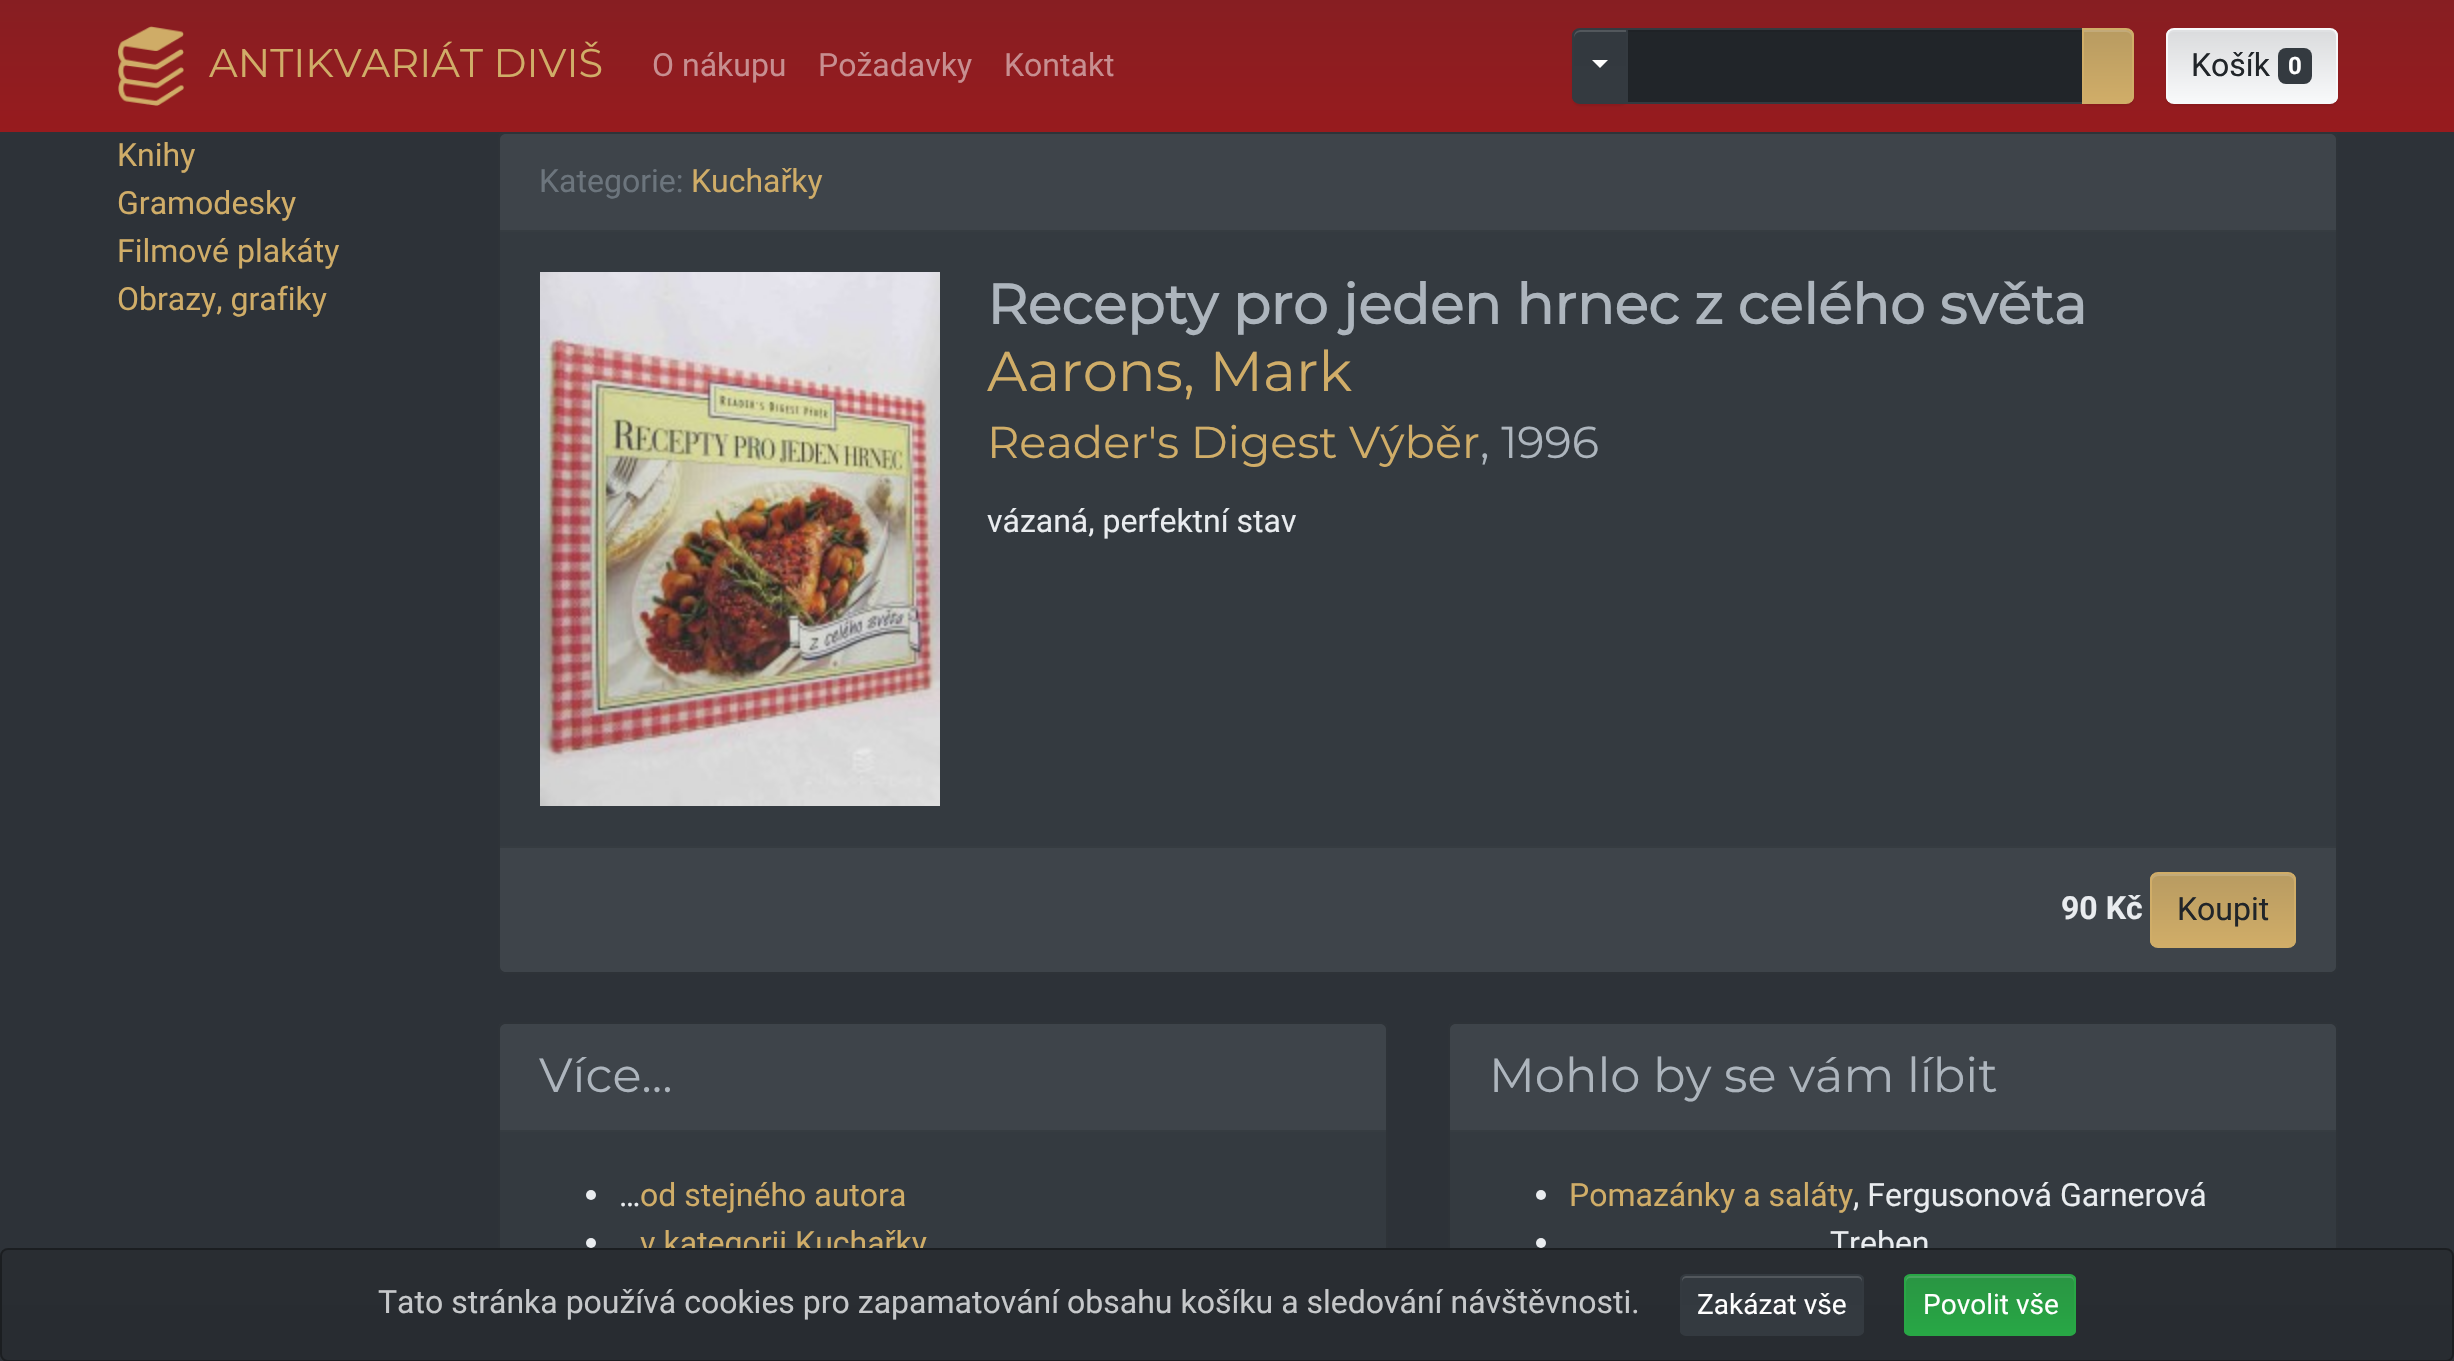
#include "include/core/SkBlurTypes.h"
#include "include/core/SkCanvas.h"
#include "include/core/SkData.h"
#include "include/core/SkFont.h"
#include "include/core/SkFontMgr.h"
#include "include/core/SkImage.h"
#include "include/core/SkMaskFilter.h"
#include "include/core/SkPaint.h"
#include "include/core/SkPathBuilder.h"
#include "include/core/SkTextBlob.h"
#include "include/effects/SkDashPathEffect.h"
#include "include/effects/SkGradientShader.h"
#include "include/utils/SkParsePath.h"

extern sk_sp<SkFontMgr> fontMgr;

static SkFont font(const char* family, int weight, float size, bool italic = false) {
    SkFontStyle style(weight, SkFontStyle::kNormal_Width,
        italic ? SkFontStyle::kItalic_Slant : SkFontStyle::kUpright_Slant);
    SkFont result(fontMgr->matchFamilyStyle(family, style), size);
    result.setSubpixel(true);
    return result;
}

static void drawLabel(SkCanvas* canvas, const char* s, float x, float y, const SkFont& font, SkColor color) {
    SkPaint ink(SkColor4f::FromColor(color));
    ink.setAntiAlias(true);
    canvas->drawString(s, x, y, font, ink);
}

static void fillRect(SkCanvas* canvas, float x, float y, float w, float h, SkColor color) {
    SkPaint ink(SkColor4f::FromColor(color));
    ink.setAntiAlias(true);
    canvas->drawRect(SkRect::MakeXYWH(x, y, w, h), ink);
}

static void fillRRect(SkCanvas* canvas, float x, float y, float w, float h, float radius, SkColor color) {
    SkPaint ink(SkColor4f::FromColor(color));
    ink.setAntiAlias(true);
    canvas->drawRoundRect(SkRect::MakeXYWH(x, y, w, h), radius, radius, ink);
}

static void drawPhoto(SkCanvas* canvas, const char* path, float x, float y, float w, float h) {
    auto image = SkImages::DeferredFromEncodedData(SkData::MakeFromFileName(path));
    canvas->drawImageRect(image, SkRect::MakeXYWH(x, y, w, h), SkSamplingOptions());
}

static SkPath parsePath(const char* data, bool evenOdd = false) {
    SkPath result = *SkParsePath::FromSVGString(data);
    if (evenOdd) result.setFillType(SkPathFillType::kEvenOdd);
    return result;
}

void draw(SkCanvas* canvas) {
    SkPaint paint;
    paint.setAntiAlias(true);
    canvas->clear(0xFF2D3238);
    {
        const SkColor colors[] = {0xFF871E22, 0xFF971B1E};
        const float stops[] = {0, 1};
        const SkPoint ends[] = {{1227, 0}, {1227, 132}};
        paint.setShader(SkGradientShader::MakeLinear(ends, colors, stops, 2, SkTileMode::kClamp));
        paint.setAlpha(255);
    }
    canvas->drawRect(SkRect::MakeXYWH(0, 0, 2454, 132), paint);
    drawPhoto(canvas, "assets/img1.png", 118, 26, 66, 80);
    SkFont font1 = font("Montserrat", 100, 40);
    drawLabel(canvas, "ANTIKVARIÁT DIVIŠ", 209, 77, font1, 0xFFD0AD68);
    SkFont font2 = font("Roboto", 400, 32);
    drawLabel(canvas, "O nákupu", 652, 76, font2, 0xFFC78E90);
    drawLabel(canvas, "Požadavky", 818, 76, font2, 0xFFC78E90);
    drawLabel(canvas, "Kontakt", 1004, 76, font2, 0xFFC78E90);
    fillRect(canvas, 1628, 32, 454, 70, 0xFF212529);
    fillRect(canvas, 1628, 30, 454, 2, 0xFF1F2226);
    paint.setStroke(true);
    paint.setStrokeWidth(2);
    paint.setShader(nullptr);
    paint.setColor(0xFF343A40);
    canvas->drawRect(SkRect::MakeXYWH(1627, 29, 456, 74), paint);
    paint.setStroke(false);
    paint.setColor(0x12000000);
    paint.setMaskFilter(SkMaskFilter::MakeBlur(kNormal_SkBlurStyle, 1));
    canvas->drawRoundRect(SkRect::MakeXYWH(1572, 30, 56, 76), 8, 8, paint);
    paint.setMaskFilter(nullptr);
    canvas->save();
    canvas->clipPath(parsePath("M1580 28H1628V104H1580C1575.5 104 1572 100.5 1572 96V36C1572 31.5 1575.5 28 1580 28Z"), true);
    {
        const SkColor colors[] = {0xFF33393F, 0xFF343A40};
        const float stops[] = {0, 1};
        const SkPoint ends[] = {{1600, 30}, {1600, 102}};
        paint.setShader(SkGradientShader::MakeLinear(ends, colors, stops, 2, SkTileMode::kClamp));
        paint.setAlpha(255);
    }
    canvas->drawRect(SkRect::MakeXYWH(1572, 30, 54, 72), paint);
    canvas->restore();
    paint.setShader(nullptr);
    paint.setColor(0xFF52575C);
    canvas->drawPath(parsePath("M1580 32H1626V30H1580C1577 30 1574 33 1574 36V38C1574 35 1577 32 1580 32Z"), paint);
    paint.setStroke(true);
    paint.setColor(0xFF343A40);
    canvas->drawPath(parsePath("M1580 29H1627V103H1580C1576 103 1573 100 1573 96V36C1573 32 1576 29 1580 29Z"), paint);
    paint.setStroke(false);
    paint.setColor(0xFFFFFFFF);
    canvas->drawPath(parsePath("M1592 60H1608L1600 68Z"), paint);
    paint.setColor(0x12000000);
    paint.setMaskFilter(SkMaskFilter::MakeBlur(kNormal_SkBlurStyle, 1));
    canvas->drawRoundRect(SkRect::MakeXYWH(2082, 30, 52, 76), 8, 8, paint);
    paint.setMaskFilter(nullptr);
    canvas->save();
    canvas->clipPath(parsePath("M2082 28H2126C2130.5 28 2134 31.5 2134 36V96C2134 100.5 2130.5 104 2126 104H2082Z"), true);
    {
        const SkColor colors[] = {0xFFB89B61, 0xFFD0AD68};
        const float stops[] = {0, 1};
        const SkPoint ends[] = {{2108, 30}, {2108, 102}};
        paint.setShader(SkGradientShader::MakeLinear(ends, colors, stops, 2, SkTileMode::kClamp));
        paint.setAlpha(255);
    }
    canvas->drawRect(SkRect::MakeXYWH(2084, 30, 50, 72), paint);
    canvas->restore();
    paint.setShader(nullptr);
    paint.setColor(0xFFC3AA79);
    canvas->drawPath(parsePath("M2084 32H2126C2129 32 2132 35 2132 38V36C2132 33 2129 30 2126 30H2084Z"), paint);
    paint.setStroke(true);
    paint.setColor(0xFFD0AD68);
    canvas->drawPath(parsePath("M2083 29H2126C2130 29 2133 32 2133 36V96C2133 100 2130 103 2126 103H2083Z"), paint);
    paint.setStroke(false);
    paint.setColor(0x12000000);
    paint.setMaskFilter(SkMaskFilter::MakeBlur(kNormal_SkBlurStyle, 1));
    canvas->drawRoundRect(SkRect::MakeXYWH(2166, 30, 172, 76), 8, 8, paint);
    paint.setMaskFilter(nullptr);
    canvas->save();
    canvas->clipPath(parsePath("M2174 28H2330C2334.5 28 2338 31.5 2338 36V96C2338 100.5 2334.5 104 2330 104H2174C2169.5 104 2166 100.5 2166 96V36C2166 31.5 2169.5 28 2174 28Z"), true);
    {
        const SkColor colors[] = {0xFFDADBDD, 0xFFF8F9FA};
        const float stops[] = {0, 1};
        const SkPoint ends[] = {{2252, 30}, {2252, 102}};
        paint.setShader(SkGradientShader::MakeLinear(ends, colors, stops, 2, SkTileMode::kClamp));
        paint.setAlpha(255);
    }
    canvas->drawRect(SkRect::MakeXYWH(2166, 30, 172, 72), paint);
    canvas->restore();
    paint.setShader(nullptr);
    paint.setColor(0xFFE0E1E3);
    canvas->drawPath(parsePath("M2174 32H2330C2333 32 2336 35 2336 38V36C2336 33 2333 30 2330 30H2174C2171 30 2168 33 2168 36V38C2168 35 2171 32 2174 32Z"), paint);
    paint.setStroke(true);
    paint.setColor(0xFFF8F9FA);
    canvas->drawRoundRect(SkRect::MakeXYWH(2167, 29, 170, 74), 7, 7, paint);
    drawLabel(canvas, "Košík", 2191, 76, font2, 0xFF212529);
    fillRRect(canvas, 2278, 48, 34, 36, 8, 0xFF343A40);
    SkFont font3 = font("Roboto", 700, 24);
    drawLabel(canvas, "0", 2288, 74, font3, 0xFFFFFFFF);
    drawLabel(canvas, "Knihy", 117, 166, font2, 0xFFD0AD68);
    drawLabel(canvas, "Gramodesky", 117, 214, font2, 0xFFD0AD68);
    drawLabel(canvas, "Filmové plakáty", 117, 262, font2, 0xFFD0AD68);
    drawLabel(canvas, "Obrazy, grafiky", 117, 310, font2, 0xFFD0AD68);
    fillRRect(canvas, 498, 132, 1840, 842, 8, 0xFF343A40);
    paint.setColor(0x1F000000);
    canvas->drawRoundRect(SkRect::MakeXYWH(499, 133, 1838, 840), 7, 7, paint);
    paint.setStroke(false);
    paint.setColor(0xFF3E444A);
    canvas->drawPath(parsePath("M506 134H2330C2333.5 134 2336 136.5 2336 140V232H500V140C500 136.5 502.5 134 506 134Z"), paint);
    fillRect(canvas, 500, 230, 1836, 2, 0xFF363C41);
    drawLabel(canvas, "Kategorie:", 539, 192, font2, 0xFF6C757D);
    drawLabel(canvas, "Kuchařky", 691, 192, font2, 0xFFD0AD68);
    drawPhoto(canvas, "assets/img2.png", 540, 272, 400, 534);
    SkFont font4 = font("Montserrat", 700, 56);
    drawLabel(canvas, "Recepty pro jeden hrnec z celého světa", 987, 324, font4, 0xFFADB5BD);
    SkFont font5 = font("Montserrat", 100, 56);
    drawLabel(canvas, "Aarons, Mark", 987, 391, font5, 0xFFD0AD68);
    SkFont font6 = font("Montserrat", 100, 44.75f);
    drawLabel(canvas, "Reader's Digest Výběr", 987, 458, font6, 0xFFD0AD68);
    drawLabel(canvas, ", 1996", 1480, 458, font6, 0xFFADB5BD);
    drawLabel(canvas, "vázaná, perfektní stav", 987, 532, font2, 0xFFE9ECEF);
    canvas->drawPath(parsePath("M500 846H2336V966C2336 969.5 2333.5 972 2330 972H506C502.5 972 500 969.5 500 966Z"), paint);
    fillRect(canvas, 500, 846, 1836, 2, 0xFF363C41);
    SkFont font7 = font("Roboto", 700, 32);
    drawLabel(canvas, "90 Kč", 2061, 919, font7, 0xFFE9ECEF);
    canvas->save();
    canvas->clipPath(parsePath("M2158 872H2288C2292.5 872 2296 875.5 2296 880V940C2296 944.5 2292.5 948 2288 948H2158C2153.5 948 2150 944.5 2150 940V880C2150 875.5 2153.5 872 2158 872Z"), true);
    {
        const SkColor colors[] = {0xFFB89B61, 0xFFD0AD68};
        const float stops[] = {0, 1};
        const SkPoint ends[] = {{2223, 874}, {2223, 946}};
        paint.setShader(SkGradientShader::MakeLinear(ends, colors, stops, 2, SkTileMode::kClamp));
        paint.setAlpha(255);
    }
    canvas->drawRect(SkRect::MakeXYWH(2150, 874, 146, 72), paint);
    canvas->restore();
    paint.setShader(nullptr);
    paint.setColor(0xFFC3AA79);
    canvas->drawPath(parsePath("M2158 876H2288C2291 876 2294 879 2294 882V880C2294 877 2291 874 2288 874H2158C2155 874 2152 877 2152 880V882C2152 879 2155 876 2158 876Z"), paint);
    paint.setStroke(true);
    paint.setColor(0xFFD0AD68);
    canvas->drawRoundRect(SkRect::MakeXYWH(2151, 873, 144, 74), 7, 7, paint);
    drawLabel(canvas, "Koupit", 2177, 920, font2, 0xFF212529);
    fillRRect(canvas, 498, 1022, 890, 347, 8, 0xFF343A40);
    paint.setColor(0x1F000000);
    canvas->drawRoundRect(SkRect::MakeXYWH(499, 1023, 888, 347), 7, 7, paint);
    paint.setStroke(false);
    paint.setColor(0xFF3E444A);
    canvas->drawPath(parsePath("M506 1024H1380C1383.5 1024 1386 1026.5 1386 1030V1132H500V1030C500 1026.5 502.5 1024 506 1024Z"), paint);
    fillRect(canvas, 500, 1130, 886, 2, 0xFF363C41);
    SkFont font8 = font("Montserrat", 100, 48);
    drawLabel(canvas, "Více…", 539, 1092, font8, 0xFFADB5BD);
    paint.setColor(0xFFE9ECEF);
    canvas->drawCircle(591, 1195, 5, paint);
    drawLabel(canvas, "od stejného autora", 640, 1206, font2, 0xFFD0AD68);
    drawLabel(canvas, "…", 619, 1206, font2, 0xFFE9ECEF);
    canvas->drawCircle(591, 1243, 5, paint);
    drawLabel(canvas, "v kategorii Kuchařky", 640, 1254, font2, 0xFFD0AD68);
    fillRRect(canvas, 1448, 1022, 890, 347, 8, 0xFF343A40);
    paint.setStroke(true);
    paint.setColor(0x1F000000);
    canvas->drawRoundRect(SkRect::MakeXYWH(1449, 1023, 888, 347), 7, 7, paint);
    paint.setStroke(false);
    paint.setColor(0xFF3E444A);
    canvas->drawPath(parsePath("M1456 1024H2330C2333.5 1024 2336 1026.5 2336 1030V1132H1450V1030C1450 1026.5 1452.5 1024 1456 1024Z"), paint);
    fillRect(canvas, 1450, 1130, 886, 2, 0xFF363C41);
    drawLabel(canvas, "Mohlo by se vám líbit", 1489, 1092, font8, 0xFFADB5BD);
    paint.setColor(0xFFE9ECEF);
    canvas->drawCircle(1541, 1195, 5, paint);
    drawLabel(canvas, "Pomazánky a saláty", 1569, 1206, font2, 0xFFD0AD68);
    drawLabel(canvas, ", Fergusonová Garnerová", 1853, 1206, font2, 0xFFE9ECEF);
    canvas->drawCircle(1541, 1243, 5, paint);
    drawLabel(canvas, "Treben", 1830, 1254, font2, 0xFFE9ECEF);
    canvas->save();
    canvas->clipPath(parsePath("M8 1248H2446C2450.5 1248 2454 1251.5 2454 1256V1354C2454 1358.5 2450.5 1362 2446 1362H8C3.5 1362 0 1358.5 0 1354V1256C0 1251.5 3.5 1248 8 1248Z"), true);
    {
        const SkColor colors[] = {0xFF292D32, 0xFF282C31};
        const float stops[] = {0, 1};
        const SkPoint ends[] = {{1227, 1250}, {1227, 1360}};
        paint.setShader(SkGradientShader::MakeLinear(ends, colors, stops, 2, SkTileMode::kClamp));
        paint.setAlpha(255);
    }
    canvas->drawRect(SkRect::MakeXYWH(0, 1250, 2454, 110), paint);
    canvas->restore();
    paint.setStroke(true);
    paint.setShader(nullptr);
    paint.setColor(0xFF1B1E21);
    canvas->drawRoundRect(SkRect::MakeXYWH(1, 1249, 2452, 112), 7, 7, paint);
    drawLabel(canvas, "Tato stránka používá cookies pro zapamatování obsahu košíku a sledování návštěvnosti.", 378, 1313, font2, 0xFFC6C8CA);
    canvas->save();
    canvas->clipPath(parsePath("M1686 1274H1858C1861.5 1274 1864 1276.5 1864 1280V1330C1864 1333.5 1861.5 1336 1858 1336H1686C1682.5 1336 1680 1333.5 1680 1330V1280C1680 1276.5 1682.5 1274 1686 1274Z"), true);
    paint.setStroke(false);
    {
        const SkColor colors[] = {0xFF33393F, 0xFF343A40};
        const float stops[] = {0, 1};
        const SkPoint ends[] = {{1772, 1276}, {1772, 1334}};
        paint.setShader(SkGradientShader::MakeLinear(ends, colors, stops, 2, SkTileMode::kClamp));
        paint.setAlpha(255);
    }
    canvas->drawRect(SkRect::MakeXYWH(1680, 1276, 184, 58), paint);
    canvas->restore();
    paint.setShader(nullptr);
    paint.setColor(0xFF52575C);
    canvas->drawPath(parsePath("M1686 1278H1858C1860 1278 1862 1280 1862 1282V1280C1862 1278 1860 1276 1858 1276H1686C1684 1276 1682 1278 1682 1280V1282C1682 1280 1684 1278 1686 1278Z"), paint);
    paint.setStroke(true);
    paint.setColor(0xFF343A40);
    canvas->drawRoundRect(SkRect::MakeXYWH(1681, 1275, 182, 60), 5, 5, paint);
    SkFont font9 = font("Roboto", 400, 28);
    drawLabel(canvas, "Zakázat vše", 1697, 1314, font9, 0xFFFFFFFF);
    canvas->save();
    canvas->clipPath(parsePath("M1910 1274H2070C2073.5 1274 2076 1276.5 2076 1280V1330C2076 1333.5 2073.5 1336 2070 1336H1910C1906.5 1336 1904 1333.5 1904 1330V1280C1904 1276.5 1906.5 1274 1910 1274Z"), true);
    paint.setStroke(false);
    {
        const SkColor colors[] = {0xFF299543, 0xFF28A745};
        const float stops[] = {0, 1};
        const SkPoint ends[] = {{1990, 1276}, {1990, 1334}};
        paint.setShader(SkGradientShader::MakeLinear(ends, colors, stops, 2, SkTileMode::kClamp));
        paint.setAlpha(255);
    }
    canvas->drawRect(SkRect::MakeXYWH(1904, 1276, 172, 58), paint);
    canvas->restore();
    paint.setShader(nullptr);
    paint.setColor(0xFF49A55F);
    canvas->drawPath(parsePath("M1910 1278H2070C2072 1278 2074 1280 2074 1282V1280C2074 1278 2072 1276 2070 1276H1910C1908 1276 1906 1278 1906 1280V1282C1906 1280 1908 1278 1910 1278Z"), paint);
    paint.setStroke(true);
    paint.setColor(0xFF28A745);
    canvas->drawRoundRect(SkRect::MakeXYWH(1905, 1275, 170, 60), 5, 5, paint);
    drawLabel(canvas, "Povolit vše", 1923, 1314, font9, 0xFFFFFFFF);
}
